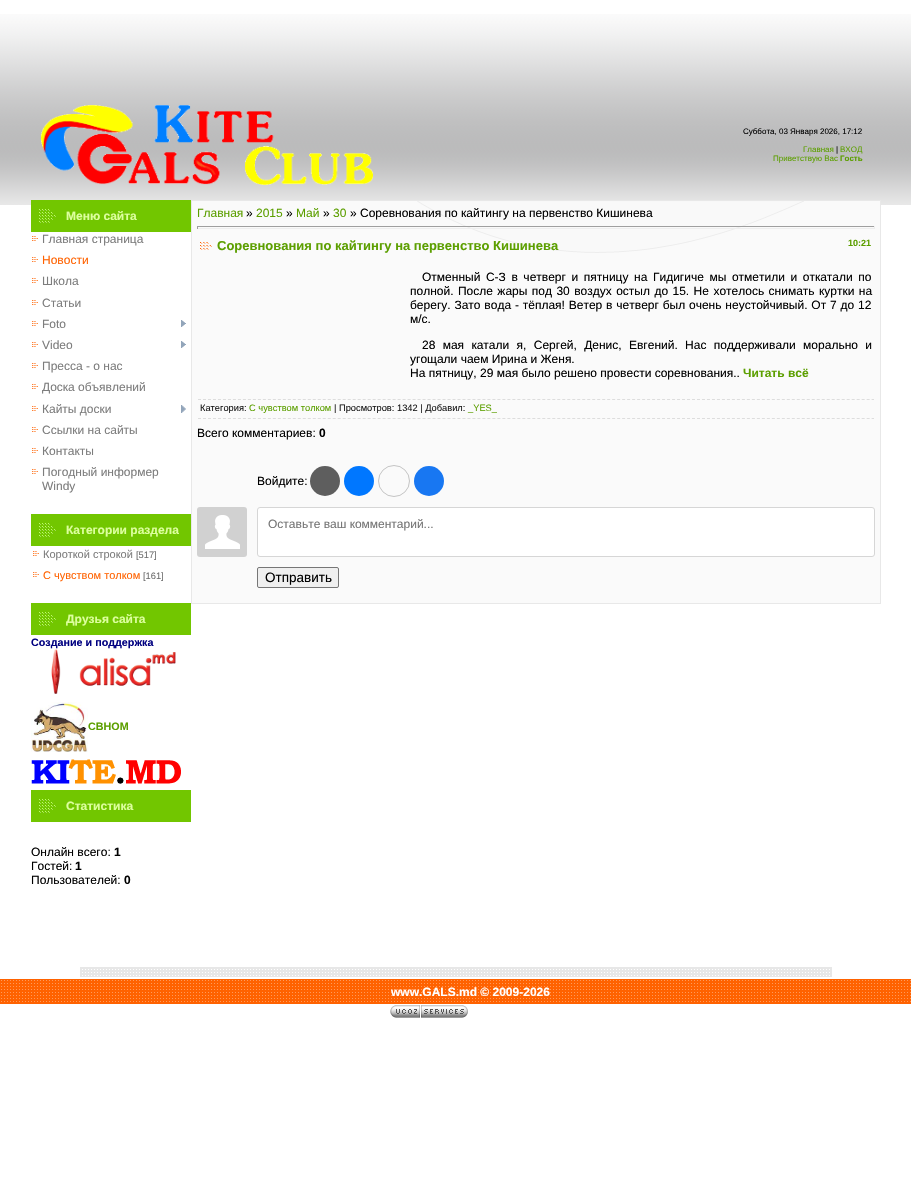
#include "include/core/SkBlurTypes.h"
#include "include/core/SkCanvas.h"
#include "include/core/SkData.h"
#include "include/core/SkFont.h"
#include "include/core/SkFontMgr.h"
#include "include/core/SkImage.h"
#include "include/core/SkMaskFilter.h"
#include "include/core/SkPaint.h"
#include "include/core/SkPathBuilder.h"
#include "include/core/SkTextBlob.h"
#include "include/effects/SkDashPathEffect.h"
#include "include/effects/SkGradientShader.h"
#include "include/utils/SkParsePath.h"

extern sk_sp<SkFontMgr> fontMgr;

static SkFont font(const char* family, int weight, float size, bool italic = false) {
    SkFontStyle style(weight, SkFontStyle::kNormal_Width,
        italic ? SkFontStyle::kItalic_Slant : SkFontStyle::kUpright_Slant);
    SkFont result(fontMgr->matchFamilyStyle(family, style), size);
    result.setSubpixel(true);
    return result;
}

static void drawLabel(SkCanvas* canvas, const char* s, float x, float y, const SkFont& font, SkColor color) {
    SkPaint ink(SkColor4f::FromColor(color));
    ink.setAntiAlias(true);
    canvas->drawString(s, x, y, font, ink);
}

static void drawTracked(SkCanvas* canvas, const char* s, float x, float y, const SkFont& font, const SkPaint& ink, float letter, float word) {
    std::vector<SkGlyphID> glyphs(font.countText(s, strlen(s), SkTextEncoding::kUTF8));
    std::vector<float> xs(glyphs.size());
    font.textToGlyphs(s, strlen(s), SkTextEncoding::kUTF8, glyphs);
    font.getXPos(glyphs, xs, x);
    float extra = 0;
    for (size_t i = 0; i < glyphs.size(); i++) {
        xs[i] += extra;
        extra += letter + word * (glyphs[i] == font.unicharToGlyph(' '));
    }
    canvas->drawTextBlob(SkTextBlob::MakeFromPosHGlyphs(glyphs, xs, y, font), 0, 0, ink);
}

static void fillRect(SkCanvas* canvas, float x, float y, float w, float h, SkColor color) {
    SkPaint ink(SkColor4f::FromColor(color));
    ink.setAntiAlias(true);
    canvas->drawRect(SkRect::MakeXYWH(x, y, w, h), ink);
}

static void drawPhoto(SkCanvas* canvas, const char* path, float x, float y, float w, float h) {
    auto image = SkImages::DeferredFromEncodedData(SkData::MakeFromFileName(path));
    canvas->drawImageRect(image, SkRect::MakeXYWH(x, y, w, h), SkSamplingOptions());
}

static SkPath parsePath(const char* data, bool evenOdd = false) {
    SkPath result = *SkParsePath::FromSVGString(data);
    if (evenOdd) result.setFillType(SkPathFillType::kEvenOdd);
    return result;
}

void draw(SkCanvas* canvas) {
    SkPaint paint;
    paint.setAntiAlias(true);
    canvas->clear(0xFFFFFFFF);
    drawPhoto(canvas, "assets/img1.png", 0, 14, 911, 191);
    drawPhoto(canvas, "assets/img2.png", 41, 105, 332, 80);
    SkFont font1 = font("Liberation Sans", 400, 8);
    drawLabel(canvas, "Суббота, 03 Января 2026, 17:12", 743, 134, font1, 0xFF000000);
    drawLabel(canvas, "ВХОД", 840, 152, font1, 0xFF5C9F00);
    drawLabel(canvas, "Приветствую Вас", 773, 161, font1, 0xFF5C9F00);
    SkFont font2 = font("Liberation Sans", 700, 8);
    drawLabel(canvas, "Гость", 840, 161, font2, 0xFF5C9F00);
    drawLabel(canvas, "Главная", 803, 152, font1, 0xFF5C9F00);
    drawLabel(canvas, "|", 836, 152, font1, 0xFF000000);
    fillRect(canvas, 31, 200, 160, 32, 0xFF72C600);
    drawPhoto(canvas, "assets/img3.png", 39, 209, 17, 14);
    SkFont font3 = font("Liberation Sans", 700, 12);
    drawLabel(canvas, "Меню сайта", 66, 220, font3, 0xFFDDFF9E);
    drawPhoto(canvas, "assets/img4.png", 32, 236, 6, 5);
    SkFont font4 = font("Liberation Sans", 400, 12);
    drawLabel(canvas, "Главная страница", 42, 243, font4, 0xFF7D7D7D);
    drawPhoto(canvas, "assets/img4.png", 32, 257, 6, 5);
    drawLabel(canvas, "Новости", 42, 264, font4, 0xFFFF6200);
    drawPhoto(canvas, "assets/img4.png", 32, 278, 6, 5);
    drawLabel(canvas, "Школа", 42, 285, font4, 0xFF7D7D7D);
    drawPhoto(canvas, "assets/img4.png", 32, 300, 6, 5);
    drawLabel(canvas, "Статьи", 42, 307, font4, 0xFF7D7D7D);
    drawPhoto(canvas, "assets/img4.png", 32, 321, 6, 5);
    drawLabel(canvas, "Foto", 42, 328, font4, 0xFF7D7D7D);
    drawPhoto(canvas, "assets/img5.png", 181, 320, 5, 7);
    drawPhoto(canvas, "assets/img4.png", 32, 342, 6, 5);
    drawLabel(canvas, "Video", 42, 349, font4, 0xFF7D7D7D);
    drawPhoto(canvas, "assets/img5.png", 181, 341, 5, 7);
    drawPhoto(canvas, "assets/img4.png", 32, 363, 6, 5);
    drawLabel(canvas, "Пресса - о нас", 42, 370, font4, 0xFF7D7D7D);
    drawPhoto(canvas, "assets/img4.png", 32, 384, 6, 5);
    drawLabel(canvas, "Доска объявлений", 42, 391, font4, 0xFF7D7D7D);
    drawPhoto(canvas, "assets/img4.png", 32, 406, 6, 5);
    drawLabel(canvas, "Кайты доски", 42, 413, font4, 0xFF7D7D7D);
    drawPhoto(canvas, "assets/img6.png", 181, 405, 5, 8);
    drawPhoto(canvas, "assets/img4.png", 32, 427, 6, 5);
    drawLabel(canvas, "Ссылки на сайты", 42, 434, font4, 0xFF7D7D7D);
    drawPhoto(canvas, "assets/img4.png", 32, 448, 6, 5);
    drawLabel(canvas, "Контакты", 42, 455, font4, 0xFF7D7D7D);
    drawPhoto(canvas, "assets/img4.png", 32, 469, 6, 5);
    drawLabel(canvas, "Погодный информер", 42, 476, font4, 0xFF7D7D7D);
    drawLabel(canvas, "Windy", 42, 490, font4, 0xFF7D7D7D);
    fillRect(canvas, 31, 514, 160, 32, 0xFF72C600);
    drawPhoto(canvas, "assets/img3.png", 39, 523, 17, 14);
    drawLabel(canvas, "Категории раздела", 66, 534, font3, 0xFFDDFF9E);
    drawPhoto(canvas, "assets/img4.png", 33, 551, 6, 5);
    SkFont font5 = font("Liberation Sans", 400, 11);
    drawLabel(canvas, "Короткой строкой", 43, 558, font5, 0xFF7D7D7D);
    SkFont font6 = font("Liberation Sans", 400, 9.3f);
    drawLabel(canvas, "[517]", 136, 558, font6, 0xFF6E6E6E);
    drawPhoto(canvas, "assets/img4.png", 33, 572, 6, 5);
    drawLabel(canvas, "C чувством толком", 43, 579, font5, 0xFFFF6200);
    drawLabel(canvas, "[161]", 143, 579, font6, 0xFF6E6E6E);
    fillRect(canvas, 31, 603, 160, 32, 0xFF72C600);
    drawPhoto(canvas, "assets/img3.png", 39, 612, 17, 14);
    drawLabel(canvas, "Друзья сайта", 66, 623, font3, 0xFFDDFF9E);
    SkFont font7 = font("Liberation Sans", 700, 10.75f);
    drawLabel(canvas, "Создание и поддержка", 31, 646, font7, 0xFF000080);
    drawPhoto(canvas, "assets/img7.png", 51, 649, 125, 45);
    drawPhoto(canvas, "assets/img8.png", 31, 702, 57, 50);
    drawLabel(canvas, "СВНОМ", 88, 730, font7, 0xFF5C9F00);
    drawPhoto(canvas, "assets/img9.png", 31, 759, 150, 25);
    fillRect(canvas, 31, 790, 160, 32, 0xFF72C600);
    drawPhoto(canvas, "assets/img3.png", 39, 799, 17, 14);
    drawLabel(canvas, "Статистика", 66, 810, font3, 0xFFDDFF9E);
    drawLabel(canvas, "Онлайн всего:", 31, 856, font4, 0xFF000000);
    drawLabel(canvas, "1", 114, 856, font3, 0xFF000000);
    drawLabel(canvas, "Гостей:", 31, 870, font4, 0xFF000000);
    drawLabel(canvas, "1", 75, 870, font3, 0xFF000000);
    drawLabel(canvas, "Пользователей:", 31, 884, font4, 0xFF000000);
    drawLabel(canvas, "0", 124, 884, font3, 0xFF000000);
    paint.setStroke(true);
    paint.setStrokeWidth(1);
    paint.setColor(0xFFE8E8E8);
    canvas->drawRect(SkRect::MakeXYWH(191.5f, 200.5f, 689, 403), paint);
    fillRect(canvas, 192, 201, 688, 402, 0xFFFAFAFA);
    drawPhoto(canvas, "assets/img10.png", 417, 201, 387, 52);
    drawLabel(canvas, "Главная", 197, 217, font4, 0xFF5C9F00);
    drawLabel(canvas, "»", 246, 217, font4, 0xFF000000);
    drawLabel(canvas, "2015", 256, 217, font4, 0xFF5C9F00);
    drawLabel(canvas, "»", 286, 217, font4, 0xFF000000);
    drawLabel(canvas, "Май", 296, 217, font4, 0xFF5C9F00);
    drawLabel(canvas, "»", 323, 217, font4, 0xFF000000);
    drawLabel(canvas, "30", 333, 217, font4, 0xFF5C9F00);
    drawLabel(canvas, "» Соревнования по кайтингу на первенство Кишинева", 350, 217, font4, 0xFF000000);
    fillRect(canvas, 197, 226, 678, 1, 0xFF9F9F9F);
    fillRect(canvas, 874, 226, 1, 3, 0xFFEEEEEE);
    fillRect(canvas, 197, 228, 678, 1, 0xFFEEEEEE);
    fillRect(canvas, 197, 226, 1, 3, 0xFF9F9F9F);
    drawPhoto(canvas, "assets/img11.png", 200, 242, 12, 8);
    SkFont font8 = font("Liberation Sans", 700, 13);
    drawLabel(canvas, "Соревнования по кайтингу на первенство Кишинева", 217, 250, font8, 0xFF5C9F00);
    SkFont font9 = font("Liberation Sans", 700, 9);
    drawLabel(canvas, "10:21", 848, 246, font9, 0xFF5C9F00);
    paint.setStroke(false);
    paint.setColor(0xFF000000);
    drawTracked(canvas, "Отменный С-З в четверг и пятницу на Гидигиче мы отметили и откатали по", 422, 281, font4, paint, 0, 2.25f);
    drawTracked(canvas, "полной. После жары под 30 воздух остыл до 15. Не хотелось снимать куртки на", 410, 295, font4, paint, 0, 1.1f);
    drawTracked(canvas, "берегу. Зато вода - тёплая! Ветер в четверг был очень неустойчивый. От 7 до 12", 410, 309, font4, paint, 0, 0.5f);
    drawLabel(canvas, "м/с.", 410, 323, font4, 0xFF000000);
    drawTracked(canvas, "28 мая катали я, Сергей, Денис, Евгений. Нас поддерживали морально и", 422, 349, font4, paint, 0, 4);
    drawLabel(canvas, "угощали чаем Ирина и Женя.", 410, 363, font4, 0xFF000000);
    drawLabel(canvas, "На пятницу, 29 мая было решено провести соревнования..", 410, 377, font4, 0xFF000000);
    drawLabel(canvas, "Читать всё", 743, 377, font3, 0xFF5C9F00);
    paint.setStroke(true);
    paint.setColor(0xFFDDDDDD);
    paint.setPathEffect(SkDashPathEffect::Make({{3, 1.99f}}, 0));
    canvas->drawPath(parsePath("M198 399.5H874"), paint);
    paint.setPathEffect(nullptr);
    paint.setPathEffect(SkDashPathEffect::Make({{3, 1.99f}}, 0));
    canvas->drawPath(parsePath("M198 418.5H874"), paint);
    paint.setPathEffect(nullptr);
    drawLabel(canvas, "Категория:", 200, 411, font6, 0xFF1A1A1A);
    drawLabel(canvas, "C чувством толком", 249, 411, font6, 0xFF5C9F00);
    drawLabel(canvas, "| Просмотров: 1342 | Добавил:", 334, 411, font6, 0xFF1A1A1A);
    drawLabel(canvas, "_YES_", 468, 411, font6, 0xFF5C9F00);
    drawLabel(canvas, "Всего комментариев:", 197, 437, font4, 0xFF000000);
    drawLabel(canvas, "0", 319, 437, font3, 0xFF000000);
    drawLabel(canvas, "Войдите:", 257, 485, font4, 0xFF000000);
    paint.setStroke(false);
    paint.setColor(0xFF5E5E5E);
    canvas->drawCircle(325, 481, 15, paint);
    paint.setColor(0xFF0077FF);
    canvas->drawCircle(359, 481, 15, paint);
    paint.setStroke(true);
    paint.setColor(0xFFC4C4C4);
    canvas->drawCircle(394, 481, 15.5f, paint);
    paint.setStroke(false);
    paint.setColor(0xFF1877F2);
    canvas->drawCircle(429, 481, 15, paint);
    drawPhoto(canvas, "assets/img12.png", 197, 507, 50, 50);
    paint.setColor(0xFFFFFFFF);
    canvas->drawRoundRect(SkRect::MakeXYWH(257.5f, 507.5f, 617, 49), 2.5f, 2.5f, paint);
    paint.setStroke(true);
    paint.setColor(0xFFD6D6D6);
    canvas->drawRoundRect(SkRect::MakeXYWH(257.5f, 507.5f, 617, 49), 2.5f, 2.5f, paint);
    drawLabel(canvas, "Оставьте ваш комментарий...", 268, 528, font4, 0xFF757575);
    paint.setStroke(false);
    paint.setColor(0xFFEFEFEF);
    canvas->drawRoundRect(SkRect::MakeXYWH(257.5f, 567.5f, 81, 20), 1.5f, 1.5f, paint);
    paint.setStroke(true);
    paint.setColor(0xFF767676);
    canvas->drawRoundRect(SkRect::MakeXYWH(257.5f, 567.5f, 81, 20), 1.5f, 1.5f, paint);
    SkFont font10 = font("Liberation Sans", 400, 13.5f);
    drawLabel(canvas, "Отправить", 265, 582, font10, 0xFF000000);
    fillRect(canvas, 80, 967, 752, 10, 0xFFE7E7E7);
    drawPhoto(canvas, "assets/img13.png", 82, 969, 748, 7);
    fillRect(canvas, 0, 979, 911, 25, 0xFFFF6200);
    drawPhoto(canvas, "assets/img14.png", 1, 980, 910, 22);
    drawLabel(canvas, "www.GALS.md © 2009-2026", 391, 996, font3, 0xFFFFFFFF);
    drawPhoto(canvas, "assets/img15.png", 390, 1005, 78, 13);
}
